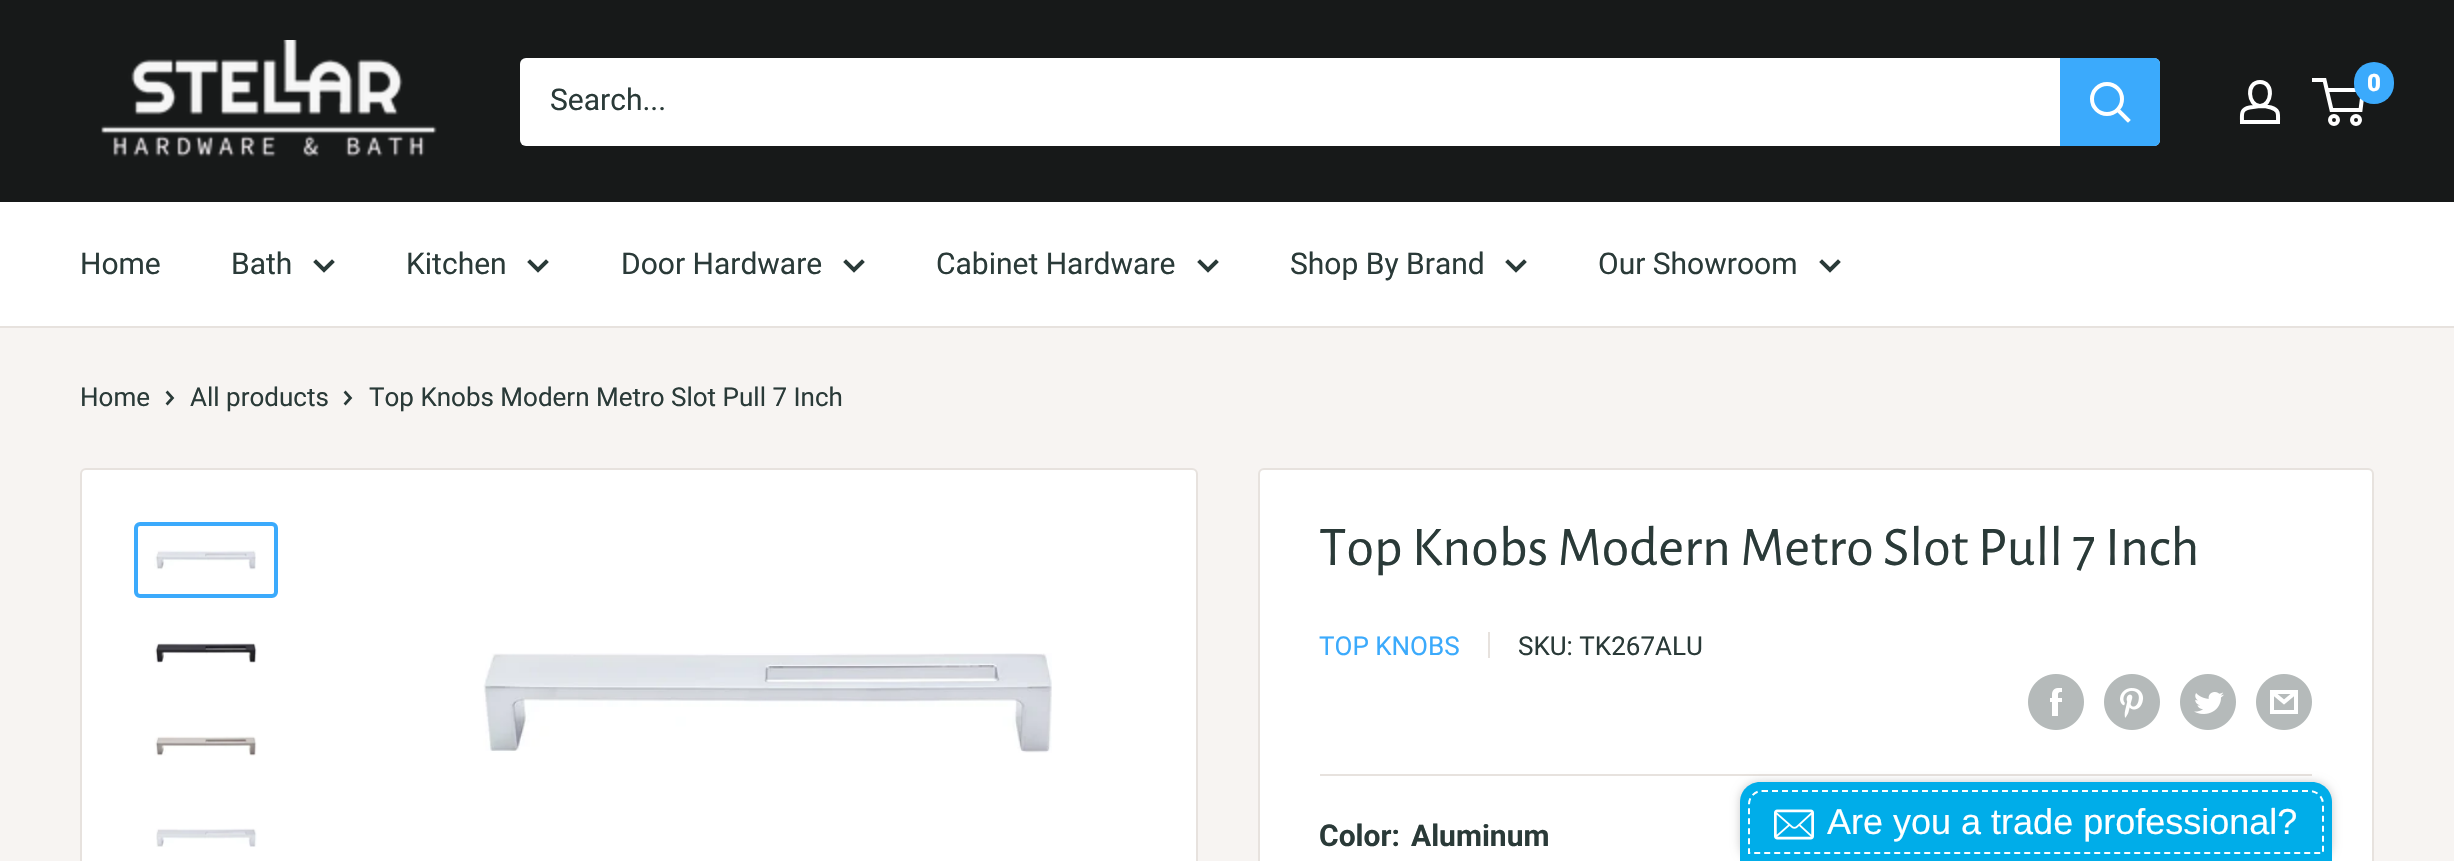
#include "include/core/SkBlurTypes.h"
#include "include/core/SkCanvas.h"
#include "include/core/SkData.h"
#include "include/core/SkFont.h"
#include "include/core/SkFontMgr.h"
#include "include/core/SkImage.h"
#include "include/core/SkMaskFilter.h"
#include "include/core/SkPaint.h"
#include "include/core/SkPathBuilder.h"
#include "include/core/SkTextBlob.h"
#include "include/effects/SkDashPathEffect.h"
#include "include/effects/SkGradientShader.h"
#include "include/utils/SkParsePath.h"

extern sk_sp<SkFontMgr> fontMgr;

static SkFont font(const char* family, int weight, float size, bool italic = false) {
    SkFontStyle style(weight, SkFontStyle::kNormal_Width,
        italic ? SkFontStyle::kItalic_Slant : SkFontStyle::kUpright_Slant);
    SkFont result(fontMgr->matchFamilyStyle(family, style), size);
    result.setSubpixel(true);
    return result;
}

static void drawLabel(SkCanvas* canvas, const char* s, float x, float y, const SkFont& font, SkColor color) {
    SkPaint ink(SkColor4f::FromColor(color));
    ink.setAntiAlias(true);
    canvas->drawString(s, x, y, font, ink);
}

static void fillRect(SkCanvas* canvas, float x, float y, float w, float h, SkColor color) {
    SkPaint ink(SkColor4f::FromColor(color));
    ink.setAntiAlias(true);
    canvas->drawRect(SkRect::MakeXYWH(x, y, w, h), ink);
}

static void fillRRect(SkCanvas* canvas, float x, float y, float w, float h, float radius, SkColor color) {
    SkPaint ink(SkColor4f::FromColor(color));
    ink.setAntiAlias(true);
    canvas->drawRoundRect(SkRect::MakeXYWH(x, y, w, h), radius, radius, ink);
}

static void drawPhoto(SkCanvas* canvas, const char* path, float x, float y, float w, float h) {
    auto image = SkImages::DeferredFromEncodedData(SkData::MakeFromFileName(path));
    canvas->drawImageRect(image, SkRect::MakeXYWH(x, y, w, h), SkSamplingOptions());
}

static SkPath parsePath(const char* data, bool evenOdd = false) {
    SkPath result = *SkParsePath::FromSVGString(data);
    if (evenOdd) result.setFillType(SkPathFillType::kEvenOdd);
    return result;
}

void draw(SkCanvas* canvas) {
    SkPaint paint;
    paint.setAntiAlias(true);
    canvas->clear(0xFFF7F4F2);
    fillRect(canvas, 0, 0, 2454, 202, 0xFF171919);
    drawPhoto(canvas, "assets/img1.png", 101, 40, 336, 117);
    paint.setStroke(true);
    paint.setStrokeWidth(4);
    paint.setColor(0xFFFFFFFF);
    canvas->drawPath(parsePath("M2260 106C2264 106 2267.5 106.5 2271 107.5C2279.5 110 2278 114.5 2278 122H2242C2242 114 2240.5 109.5 2249.5 107.5ZM2260 106C2248 106 2245.5 82 2260 82C2274.5 82 2272 106 2260 106Z"), paint);
    canvas->drawCircle(2334, 120, 4, paint);
    canvas->drawCircle(2356, 120, 4, paint);
    canvas->drawPath(parsePath("M2326.5 90H2363L2360.5 110H2331.5L2324.5 80H2312"), paint);
    fillRRect(canvas, 2354, 62, 40, 42, 20, 0xFF3BAAFC);
    SkFont font1 = font("Roboto", 900, 24);
    drawLabel(canvas, "0", 2367, 91, font1, 0xFFFFFFFF);
    fillRRect(canvas, 520, 58, 1640, 88, 6, 0xFFFFFFFF);
    SkFont font2 = font("Roboto", 400, 30);
    drawLabel(canvas, "Search...", 550, 110, font2, 0xFF2A3A38);
    paint.setStroke(false);
    paint.setColor(0xFF3BAAFC);
    canvas->drawPath(parsePath("M2060 58H2154C2157.5 58 2160 60.5 2160 64V140C2160 143.5 2157.5 146 2154 146H2060Z"), paint);
    paint.setStroke(true);
    paint.setStrokeCap(SkPaint::kSquare_Cap);
    paint.setColor(0xFFFFFFFF);
    canvas->drawPath(parsePath("M2128 120L2118 110"), paint);
    paint.setStrokeCap(SkPaint::kButt_Cap);
    canvas->drawCircle(2107, 99, 15, paint);
    fillRect(canvas, 0, 202, 2454, 124, 0xFFFFFFFF);
    fillRect(canvas, 0, 326, 2454, 2, 0xFFE7E2DE);
    drawLabel(canvas, "Home", 80, 274, font2, 0xFF2A3A38);
    drawLabel(canvas, "Bath", 231, 274, font2, 0xFF2A3A38);
    paint.setStrokeCap(SkPaint::kSquare_Cap);
    paint.setColor(0xFF2A3A38);
    canvas->drawPath(parsePath("M332 262L324 270L316 262"), paint);
    drawLabel(canvas, "Kitchen", 406, 274, font2, 0xFF2A3A38);
    canvas->drawPath(parsePath("M546 262L538 270L530 262"), paint);
    drawLabel(canvas, "Door Hardware", 621, 274, font2, 0xFF2A3A38);
    canvas->drawPath(parsePath("M862 262L854 270L846 262"), paint);
    drawLabel(canvas, "Cabinet Hardware", 936, 274, font2, 0xFF2A3A38);
    canvas->drawPath(parsePath("M1216 262L1208 270L1200 262"), paint);
    drawLabel(canvas, "Shop By Brand", 1290, 274, font2, 0xFF2A3A38);
    canvas->drawPath(parsePath("M1524 262L1516 270L1508 262"), paint);
    drawLabel(canvas, "Our Showroom", 1598, 274, font2, 0xFF2A3A38);
    canvas->drawPath(parsePath("M1838 262L1830 270L1822 262"), paint);
    SkFont font3 = font("Roboto", 400, 26);
    drawLabel(canvas, "Home", 80, 406, font3, 0xFF2A3A38);
    paint.setStrokeWidth(2.7f);
    canvas->drawPath(parsePath("M167.5 392.5L172.5 398L167.5 403.5"), paint);
    drawLabel(canvas, "All products", 190, 406, font3, 0xFF2A3A38);
    canvas->drawPath(parsePath("M345.5 392.5L350.5 398L345.5 403.5"), paint);
    drawLabel(canvas, "Top Knobs Modern Metro Slot Pull 7 Inch", 369, 406, font3, 0xFF2A3A38);
    paint.setStroke(false);
    paint.setColor(0xFFFFFFFF);
    canvas->drawRoundRect(SkRect::MakeXYWH(81, 469, 1116, 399), 5, 5, paint);
    paint.setStroke(true);
    paint.setStrokeWidth(2);
    paint.setStrokeCap(SkPaint::kButt_Cap);
    paint.setColor(0xFFE7E2DE);
    canvas->drawRoundRect(SkRect::MakeXYWH(81, 469, 1116, 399), 5, 5, paint);
    paint.setStrokeWidth(4);
    paint.setColor(0xFF3BAAFC);
    canvas->drawRoundRect(SkRect::MakeXYWH(136, 524, 140, 72), 4, 4, paint);
    drawPhoto(canvas, "assets/img2.png", 154, 550, 102, 20);
    drawPhoto(canvas, "assets/img3.png", 154, 643, 103, 20);
    drawPhoto(canvas, "assets/img4.png", 154, 736, 103, 20);
    drawPhoto(canvas, "assets/img5.png", 156, 828, 101, 19);
    drawPhoto(canvas, "assets/img6.png", 483, 653, 569, 100);
    paint.setStroke(false);
    paint.setColor(0xFFFFFFFF);
    canvas->drawRoundRect(SkRect::MakeXYWH(1259, 469, 1114, 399), 5, 5, paint);
    paint.setStroke(true);
    paint.setStrokeWidth(2);
    paint.setColor(0xFFE7E2DE);
    canvas->drawRoundRect(SkRect::MakeXYWH(1259, 469, 1114, 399), 5, 5, paint);
    SkFont font4 = font("Alegreya Sans", 400, 56);
    drawLabel(canvas, "Top Knobs Modern Metro Slot Pull 7 Inch", 1319, 565, font4, 0xFF2A3A38);
    drawLabel(canvas, "TOP KNOBS", 1319, 655, font3, 0xFF3BAAFC);
    fillRect(canvas, 1488, 632, 2, 26, 0xFFE7E2DE);
    drawLabel(canvas, "SKU: TK267ALU", 1518, 655, font3, 0xFF2A3A38);
    drawPhoto(canvas, "assets/img7.png", 2028, 674, 56, 56);
    drawPhoto(canvas, "assets/img8.png", 2104, 674, 56, 56);
    drawPhoto(canvas, "assets/img9.png", 2180, 674, 56, 56);
    drawPhoto(canvas, "assets/img10.png", 2256, 674, 56, 56);
    fillRect(canvas, 1320, 774, 992, 2, 0xFFE7E2DE);
    SkFont font5 = font("Roboto", 700, 30);
    drawLabel(canvas, "Color:", 1319, 846, font5, 0xFF2A3A38);
    drawLabel(canvas, "Aluminum", 1411, 846, font5, 0xFF2A3A38);
    paint.setStroke(false);
    paint.setColor(0x33000000);
    paint.setMaskFilter(SkMaskFilter::MakeBlur(kNormal_SkBlurStyle, 5));
    canvas->drawRoundRect(SkRect::MakeXYWH(1740, 782, 592, 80), 20, 20, paint);
    paint.setMaskFilter(nullptr);
    paint.setColor(0xFF00ADE9);
    canvas->drawPath(parsePath("M1760 782H2312C2323 782 2332 791 2332 802V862H1740V802C1740 791 1749 782 1760 782Z"), paint);
    paint.setStroke(true);
    paint.setColor(0xFFFFFFFF);
    paint.setPathEffect(SkDashPathEffect::Make({{6, 4}}, 0));
    canvas->drawPath(parsePath("M1762 791H2310C2317 791 2323 797 2323 804V853H1749V804C1749 797 1755 791 1762 791Z"), paint);
    paint.setPathEffect(nullptr);
    drawPhoto(canvas, "assets/img11.png", 1774, 809, 40, 31);
    SkFont font6 = font("Liberation Sans", 400, 36);
    drawLabel(canvas, "Are you a trade professional?", 1827, 834, font6, 0xFFFFFFFF);
}
